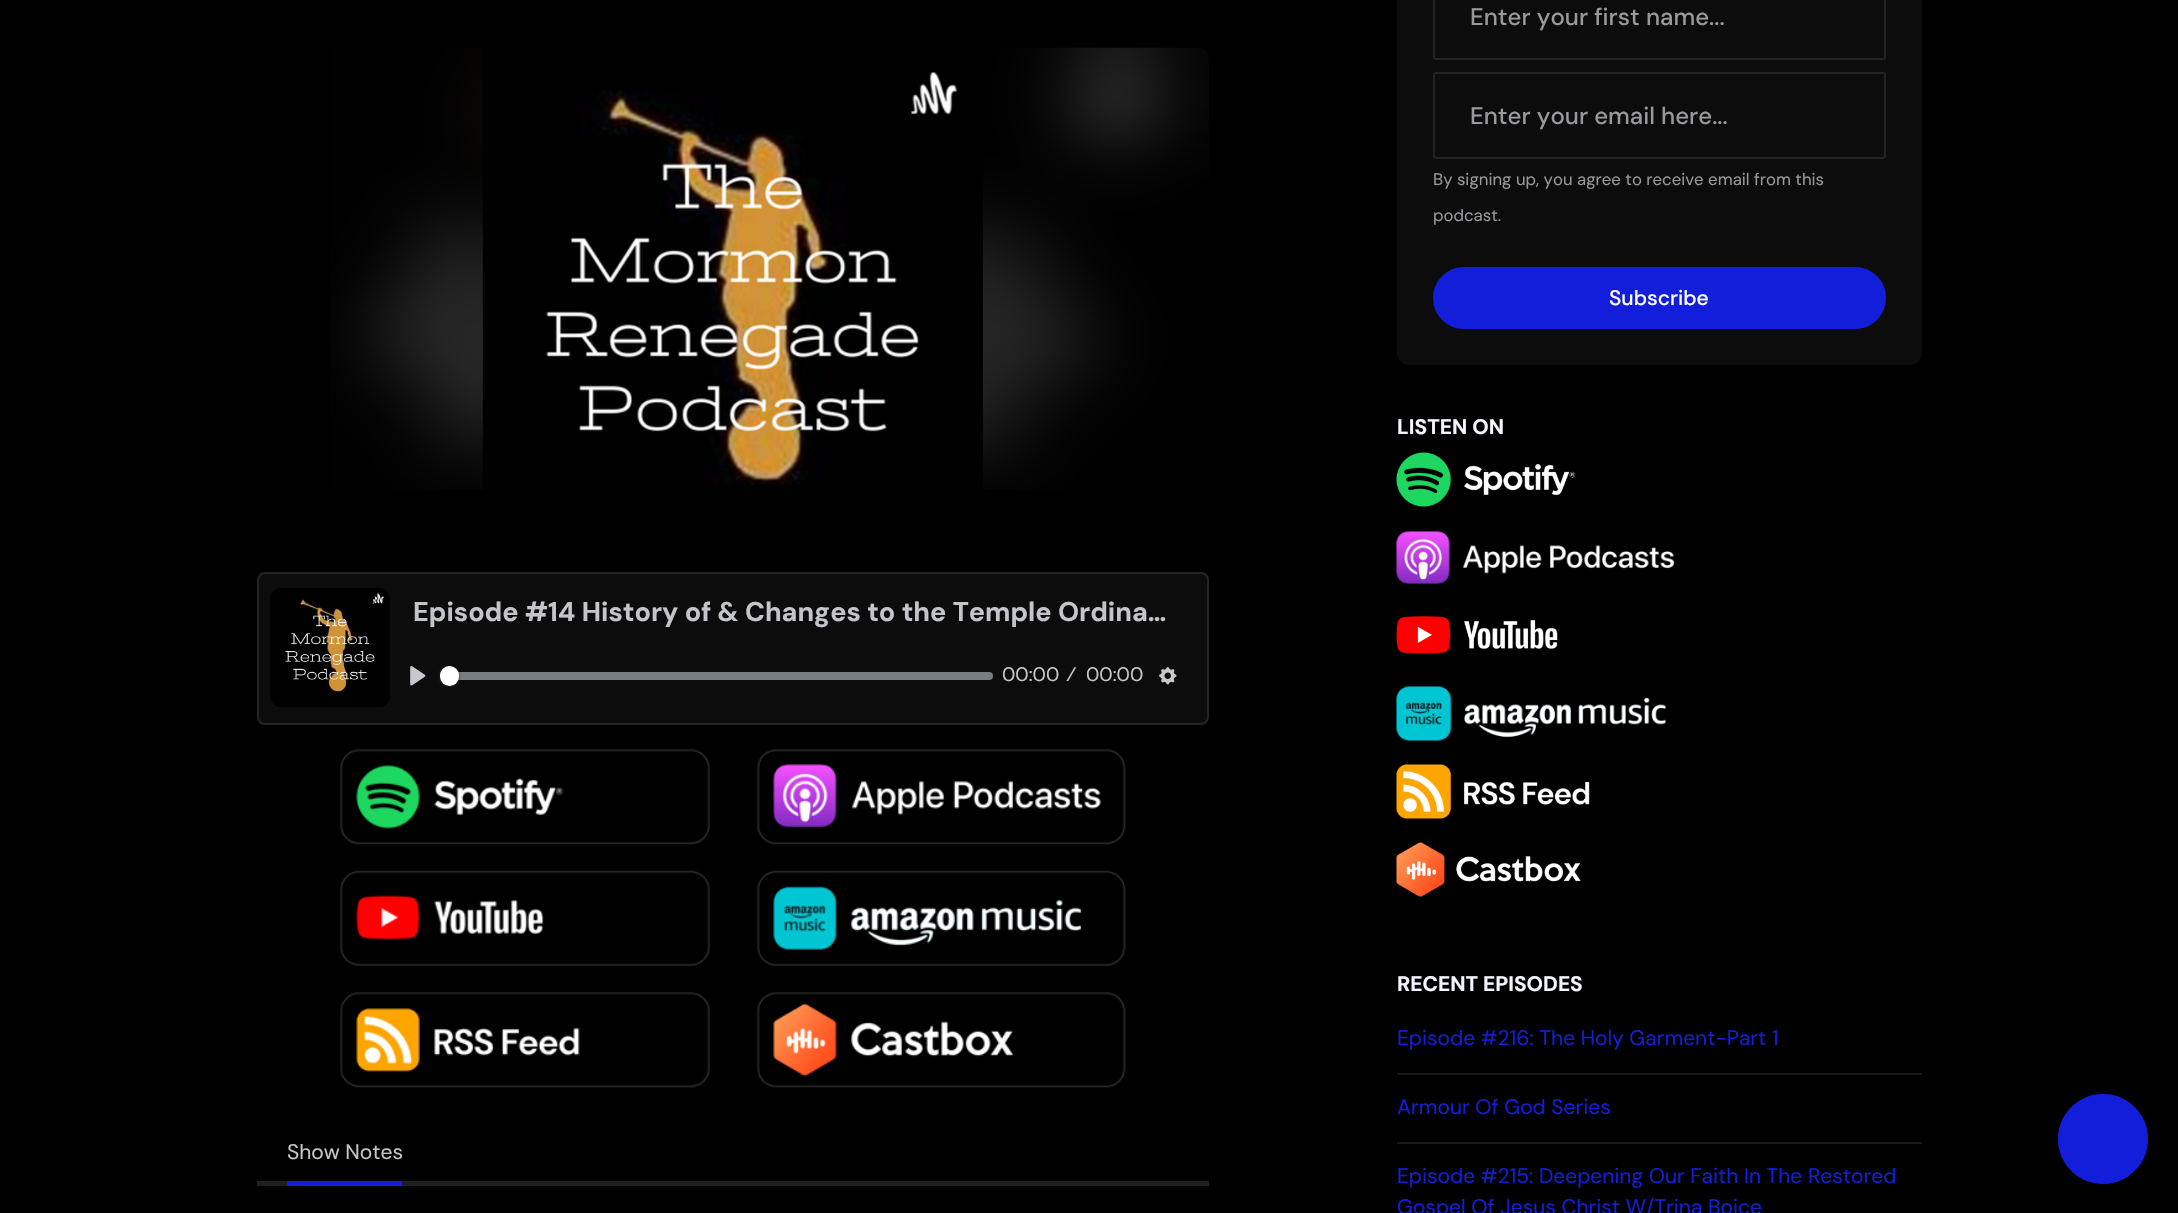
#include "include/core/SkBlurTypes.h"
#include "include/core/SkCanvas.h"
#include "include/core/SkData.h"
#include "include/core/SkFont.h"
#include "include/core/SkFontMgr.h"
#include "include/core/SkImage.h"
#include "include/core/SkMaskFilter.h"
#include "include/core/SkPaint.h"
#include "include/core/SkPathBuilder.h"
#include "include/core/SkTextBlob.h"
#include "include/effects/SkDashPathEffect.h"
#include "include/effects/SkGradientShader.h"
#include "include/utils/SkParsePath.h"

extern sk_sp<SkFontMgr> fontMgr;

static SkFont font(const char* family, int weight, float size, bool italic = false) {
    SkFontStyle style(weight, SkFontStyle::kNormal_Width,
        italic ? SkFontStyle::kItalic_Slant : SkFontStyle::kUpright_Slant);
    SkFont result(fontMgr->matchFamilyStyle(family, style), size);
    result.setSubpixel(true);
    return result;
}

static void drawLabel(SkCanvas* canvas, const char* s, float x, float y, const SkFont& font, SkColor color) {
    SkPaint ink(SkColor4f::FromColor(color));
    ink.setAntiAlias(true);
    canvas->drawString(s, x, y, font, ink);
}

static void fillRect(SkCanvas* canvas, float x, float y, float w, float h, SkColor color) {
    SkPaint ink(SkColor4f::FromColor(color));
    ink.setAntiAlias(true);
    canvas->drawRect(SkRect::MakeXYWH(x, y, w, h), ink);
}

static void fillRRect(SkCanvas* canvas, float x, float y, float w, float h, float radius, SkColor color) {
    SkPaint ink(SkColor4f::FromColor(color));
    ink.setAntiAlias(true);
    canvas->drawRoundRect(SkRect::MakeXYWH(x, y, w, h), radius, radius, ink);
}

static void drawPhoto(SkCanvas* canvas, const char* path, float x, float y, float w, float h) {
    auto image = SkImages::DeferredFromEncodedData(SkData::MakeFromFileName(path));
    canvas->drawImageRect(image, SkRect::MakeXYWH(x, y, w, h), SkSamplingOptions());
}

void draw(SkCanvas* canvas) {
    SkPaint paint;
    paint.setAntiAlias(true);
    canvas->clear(0xFF000000);
    drawPhoto(canvas, "assets/img1.png", 331, 47, 878, 443);
    fillRRect(canvas, 257, 572, 952, 153, 8, 0xFF0C0C0C);
    paint.setStroke(true);
    paint.setStrokeWidth(2);
    paint.setColor(0x1AF5F6FD);
    canvas->drawRoundRect(SkRect::MakeXYWH(258, 573, 950, 151), 7, 7, paint);
    drawPhoto(canvas, "assets/img2.png", 270, 588, 120, 119);
    SkFont font1 = font("DM Sans", 700, 27);
    drawLabel(canvas, "Episode #14 History of & Changes to the Temple Ordina…", 413, 621, font1, 0xFFC4C5CA);
    drawPhoto(canvas, "assets/img3.png", 410, 666, 16, 20);
    fillRRect(canvas, 440, 672, 553, 8, 4, 0x99C1C8D1);
    paint.setColor(0x3323282F);
    canvas->drawRoundRect(SkRect::MakeXYWH(439, 666, 21, 20), 10, 10, paint);
    paint.setStroke(false);
    paint.setColor(0x2623282F);
    paint.setMaskFilter(SkMaskFilter::MakeBlur(kNormal_SkBlurStyle, 1));
    canvas->drawRoundRect(SkRect::MakeXYWH(440, 668, 19, 19), 9.5f, 9.5f, paint);
    paint.setMaskFilter(nullptr);
    fillRRect(canvas, 440, 666, 19, 20, 9.5f, 0xFFFFFFFF);
    SkFont font2 = font("DM Sans", 400, 19.5f);
    drawLabel(canvas, "00:00", 1002, 681, font2, 0xFFC4C5CA);
    drawLabel(canvas, "⁄", 1067, 681, font2, 0xFFC4C5CA);
    drawLabel(canvas, "00:00", 1086, 681, font2, 0xFFC4C5CA);
    drawPhoto(canvas, "assets/img4.png", 1159, 667, 18, 18);
    drawPhoto(canvas, "assets/img5.png", 340, 749, 370, 96);
    drawPhoto(canvas, "assets/img6.png", 757, 749, 369, 96);
    drawPhoto(canvas, "assets/img7.png", 340, 870, 370, 96);
    drawPhoto(canvas, "assets/img8.png", 757, 870, 369, 96);
    drawPhoto(canvas, "assets/img9.png", 340, 992, 370, 96);
    drawPhoto(canvas, "assets/img10.png", 757, 992, 369, 96);
    fillRect(canvas, 257, 1181, 952, 5, 0xFF202020);
    fillRect(canvas, 287, 1181, 115, 5, 0xFF121ED9);
    SkFont font3 = font("DM Sans", 400, 21);
    drawLabel(canvas, "Show Notes", 287, 1159, font3, 0xFFC4C5CA);
    fillRRect(canvas, 1397, -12, 525, 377, 12, 0xFF0C0C0C);
    paint.setStroke(true);
    paint.setColor(0xFF232324);
    canvas->drawRoundRect(SkRect::MakeXYWH(1434, -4, 451, 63), 2, 2, paint);
    SkFont font4 = font("DM Sans", 500, 24);
    drawLabel(canvas, "Enter your first name...", 1470, 25, font4, 0xFF98989D);
    canvas->drawRoundRect(SkRect::MakeXYWH(1434, 73, 451, 85), 2, 2, paint);
    drawLabel(canvas, "Enter your email here...", 1470, 124, font4, 0xFF98989D);
    SkFont font5 = font("DM Sans", 400, 16.8f);
    drawLabel(canvas, "By signing up, you agree to receive email from this", 1433, 185, font5, 0xFF98989D);
    drawLabel(canvas, "podcast.", 1433, 221, font5, 0xFF98989D);
    paint.setStroke(false);
    paint.setColor(0xFF121ED9);
    canvas->drawRoundRect(SkRect::MakeXYWH(1434.5f, 268.5f, 450, 59), 29.5f, 29.5f, paint);
    paint.setStroke(true);
    paint.setStrokeWidth(3);
    canvas->drawRoundRect(SkRect::MakeXYWH(1434.5f, 268.5f, 450, 59), 29.5f, 29.5f, paint);
    SkFont font6 = font("DM Sans", 500, 21);
    drawLabel(canvas, "Subscribe", 1609, 305, font6, 0xFFFFFFFF);
    SkFont font7 = font("DM Sans", 700, 21);
    drawLabel(canvas, "LISTEN ON", 1397, 434, font7, 0xFFF5F6FD);
    drawPhoto(canvas, "assets/img11.png", 1396, 452, 180, 55);
    drawPhoto(canvas, "assets/img12.png", 1396, 530, 279, 55);
    drawPhoto(canvas, "assets/img13.png", 1396, 616, 162, 38);
    drawPhoto(canvas, "assets/img14.png", 1396, 686, 270, 55);
    drawPhoto(canvas, "assets/img15.png", 1396, 764, 194, 55);
    drawPhoto(canvas, "assets/img16.png", 1396, 842, 185, 55);
    drawLabel(canvas, "RECENT EPISODES", 1397, 991, font7, 0xFFF5F6FD);
    fillRect(canvas, 1397, 1073, 525, 2, 0xFF191919);
    drawLabel(canvas, "Episode #216: The Holy Garment-Part 1", 1397, 1045, font3, 0xFF121ED9);
    fillRect(canvas, 1397, 1142, 525, 2, 0xFF191919);
    drawLabel(canvas, "Armour Of God Series", 1397, 1114, font3, 0xFF121ED9);
    drawLabel(canvas, "Episode #215: Deepening Our Faith In The Restored", 1397, 1183, font3, 0xFF121ED9);
    drawLabel(canvas, "Gospel Of Jesus Christ W/Trina Boice", 1397, 1214, font3, 0xFF121ED9);
    paint.setStroke(false);
    canvas->drawCircle(2103, 1139, 44, paint);
    paint.setStroke(true);
    paint.setStrokeWidth(2);
    canvas->drawCircle(2103, 1139, 44, paint);
}
